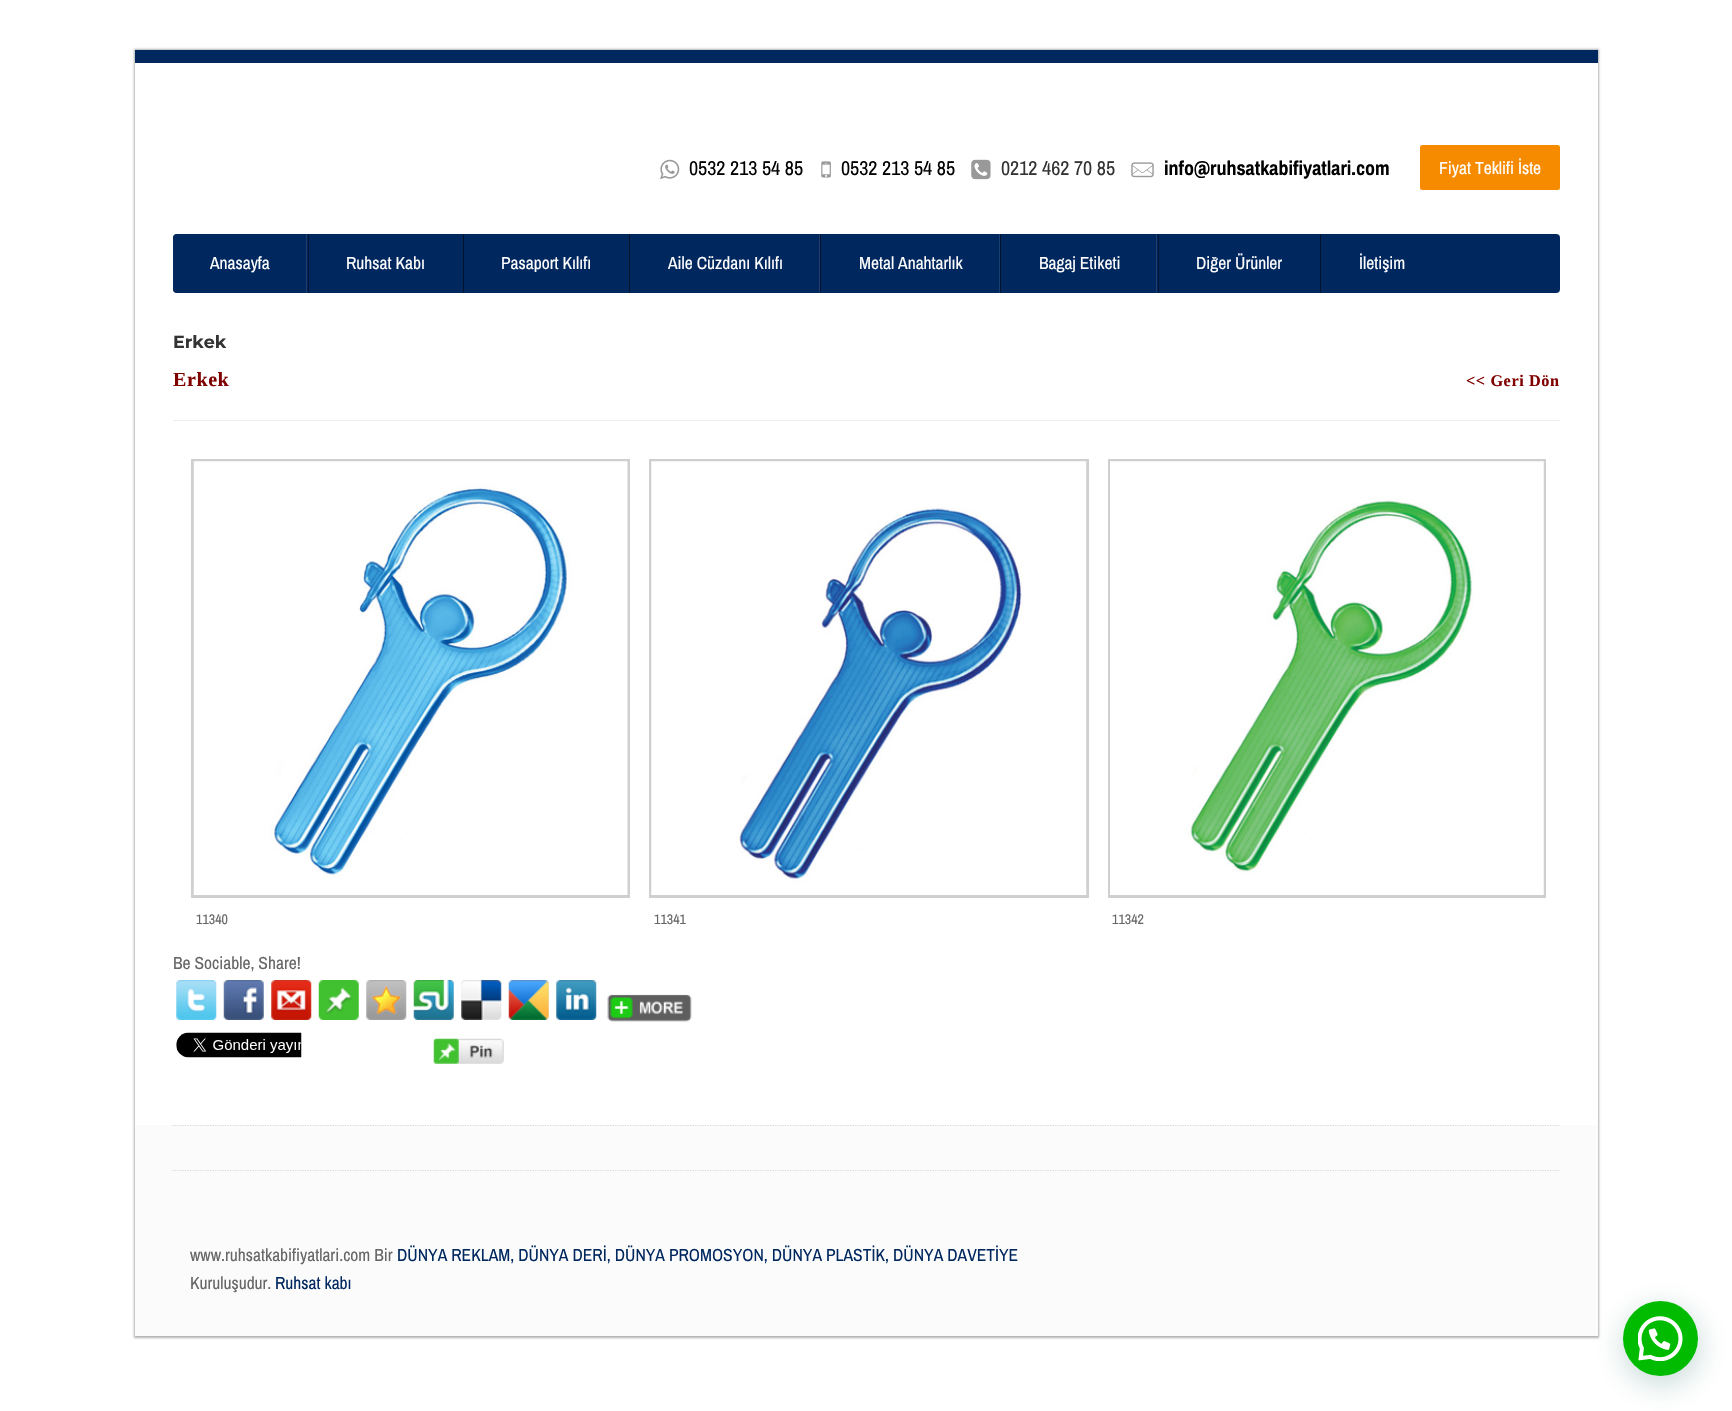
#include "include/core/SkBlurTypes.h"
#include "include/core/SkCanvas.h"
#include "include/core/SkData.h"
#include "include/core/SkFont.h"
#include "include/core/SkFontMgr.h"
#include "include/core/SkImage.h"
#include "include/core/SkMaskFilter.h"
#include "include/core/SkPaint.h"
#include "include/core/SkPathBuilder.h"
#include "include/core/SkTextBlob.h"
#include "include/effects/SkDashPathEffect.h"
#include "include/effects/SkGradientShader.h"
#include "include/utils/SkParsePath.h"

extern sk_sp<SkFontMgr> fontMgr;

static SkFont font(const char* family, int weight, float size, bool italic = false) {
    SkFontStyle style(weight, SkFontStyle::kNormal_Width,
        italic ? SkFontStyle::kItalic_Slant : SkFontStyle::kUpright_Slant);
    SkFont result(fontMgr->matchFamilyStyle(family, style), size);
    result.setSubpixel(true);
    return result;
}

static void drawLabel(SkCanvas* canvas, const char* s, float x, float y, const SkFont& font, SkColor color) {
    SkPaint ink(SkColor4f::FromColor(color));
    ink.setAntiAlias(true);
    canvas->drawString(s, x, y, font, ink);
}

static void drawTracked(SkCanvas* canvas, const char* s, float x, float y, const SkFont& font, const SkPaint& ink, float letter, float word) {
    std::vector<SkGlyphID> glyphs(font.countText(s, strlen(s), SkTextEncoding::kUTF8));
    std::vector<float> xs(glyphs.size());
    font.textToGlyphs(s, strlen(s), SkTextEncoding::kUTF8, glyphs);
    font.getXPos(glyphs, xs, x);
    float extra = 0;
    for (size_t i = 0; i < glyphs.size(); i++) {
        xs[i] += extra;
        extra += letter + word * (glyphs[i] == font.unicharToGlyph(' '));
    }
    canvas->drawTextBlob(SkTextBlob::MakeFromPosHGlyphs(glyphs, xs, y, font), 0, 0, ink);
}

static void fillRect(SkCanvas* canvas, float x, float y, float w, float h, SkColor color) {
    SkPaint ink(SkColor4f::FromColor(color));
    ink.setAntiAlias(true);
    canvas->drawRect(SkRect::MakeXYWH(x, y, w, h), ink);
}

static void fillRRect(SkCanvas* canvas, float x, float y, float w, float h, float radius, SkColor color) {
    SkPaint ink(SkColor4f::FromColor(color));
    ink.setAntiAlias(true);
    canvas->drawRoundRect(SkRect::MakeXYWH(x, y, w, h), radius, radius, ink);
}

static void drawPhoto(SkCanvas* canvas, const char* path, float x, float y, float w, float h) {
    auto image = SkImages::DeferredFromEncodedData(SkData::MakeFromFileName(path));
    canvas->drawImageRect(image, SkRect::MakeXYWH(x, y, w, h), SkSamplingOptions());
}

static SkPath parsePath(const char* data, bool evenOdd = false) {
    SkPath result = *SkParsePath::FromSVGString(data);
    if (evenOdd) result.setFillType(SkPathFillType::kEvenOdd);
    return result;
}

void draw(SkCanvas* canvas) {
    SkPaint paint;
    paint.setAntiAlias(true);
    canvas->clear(0xFFFFFFFF);
    paint.setColor(0x4D000000);
    paint.setMaskFilter(SkMaskFilter::MakeBlur(kNormal_SkBlurStyle, 1));
    canvas->drawRect(SkRect::MakeXYWH(134, 49, 1465, 1289), paint);
    paint.setMaskFilter(nullptr);
    fillRect(canvas, 135, 63, 1463, 1062, 0xFFFFFFFF);
    fillRect(canvas, 135, 50, 1463, 13, 0xFF00285F);
    drawPhoto(canvas, "assets/img1.png", 660, 159, 20, 21);
    SkFont font1 = font("Archivo Narrow", 400, 20);
    drawLabel(canvas, "0532 213 54 85", 689, 175, font1, 0xFF000000);
    drawPhoto(canvas, "assets/img2.png", 821, 161, 10, 17);
    drawLabel(canvas, "0532 213 54 85", 841, 175, font1, 0xFF000000);
    drawPhoto(canvas, "assets/img3.png", 971, 159, 20, 21);
    drawLabel(canvas, "0212 462 70 85", 1001, 175, font1, 0xFF333333);
    drawPhoto(canvas, "assets/img4.png", 1131, 162, 23, 16);
    SkFont font2 = font("Archivo Narrow", 700, 20);
    drawLabel(canvas, "info@ruhsatkabifiyatlari.com", 1164, 175, font2, 0xFF000000);
    fillRRect(canvas, 1420, 145, 140, 45, 2.5f, 0xFFF78B00);
    SkFont font3 = font("Archivo Narrow", 400, 17.5f);
    drawLabel(canvas, "Fiyat Teklifi İste", 1439, 174, font3, 0xFFFFFFFF);
    fillRRect(canvas, 173, 234, 1387, 59, 4, 0xFF00285F);
    paint.setColor(0xFF00285F);
    canvas->drawPath(parsePath("M177 234H309V293H177C175 293 173 291 173 289V238C173 236 175 234 177 234Z"), paint);
    fillRect(canvas, 308, 234, 1, 59, 0xFF00142F);
    drawLabel(canvas, "Anasayfa", 210, 269, font3, 0xFFFFFFFF);
    fillRect(canvas, 306, 234, 1, 59, 0xFF1A3E6F);
    fillRect(canvas, 463, 234, 1, 59, 0xFF00142F);
    drawLabel(canvas, "Ruhsat Kabı", 346, 269, font3, 0xFFFFFFFF);
    fillRect(canvas, 629, 234, 1, 59, 0xFF00142F);
    drawLabel(canvas, "Pasaport Kılıfı", 501, 269, font3, 0xFFFFFFFF);
    fillRect(canvas, 820, 234, 1, 59, 0xFF00142F);
    drawLabel(canvas, "Aile Cüzdanı Kılıfı", 668, 269, font3, 0xFFFFFFFF);
    fillRect(canvas, 819, 234, 1, 59, 0xFF1A3E6F);
    fillRect(canvas, 1000, 234, 1, 59, 0xFF00142F);
    drawLabel(canvas, "Metal Anahtarlık", 859, 269, font3, 0xFFFFFFFF);
    fillRect(canvas, 999, 234, 1, 59, 0xFF1A3E6F);
    fillRect(canvas, 1158, 234, 1, 59, 0xFF00142F);
    drawLabel(canvas, "Bagaj Etiketi", 1039, 269, font3, 0xFFFFFFFF);
    fillRect(canvas, 1156, 234, 1, 59, 0xFF1A3E6F);
    fillRect(canvas, 1320, 234, 1, 59, 0xFF00142F);
    drawLabel(canvas, "Diğer Ürünler", 1196, 269, font3, 0xFFFFFFFF);
    drawLabel(canvas, "İletişim", 1359, 269, font3, 0xFFFFFFFF);
    SkFont font4 = font("Montserrat", 700, 17.5f);
    drawLabel(canvas, "Erkek", 173, 348, font4, 0xFF333333);
    SkFont font5 = font("Liberation Serif", 700, 20);
    paint.setColor(0xFF800000);
    drawTracked(canvas, "Erkek", 173, 386, font5, paint, 0.6f, 0);
    SkFont font6 = font("Liberation Serif", 700, 16.25f);
    drawTracked(canvas, "<< Geri Dön", 1466, 386, font6, paint, 0.6f, 0);
    fillRect(canvas, 173, 420, 1387, 1, 0xFFEEEEEE);
    paint.setStroke(true);
    paint.setStrokeWidth(3);
    paint.setColor(0xFFCFCFCF);
    canvas->drawRect(SkRect::MakeXYWH(192.5f, 460.5f, 436, 436), paint);
    drawPhoto(canvas, "assets/img5.png", 193, 461, 435, 434);
    SkFont font7 = font("Archivo Narrow", 400, 14);
    drawLabel(canvas, "11340", 196, 924, font7, 0xFF666666);
    canvas->drawRect(SkRect::MakeXYWH(650.5f, 460.5f, 437, 436), paint);
    drawPhoto(canvas, "assets/img6.png", 651, 461, 436, 434);
    drawLabel(canvas, "11341", 654, 924, font7, 0xFF666666);
    canvas->drawRect(SkRect::MakeXYWH(1109.5f, 460.5f, 435, 436), paint);
    drawPhoto(canvas, "assets/img7.png", 1110, 461, 434, 434);
    drawLabel(canvas, "11342", 1112, 924, font7, 0xFF666666);
    drawLabel(canvas, "Be Sociable, Share!", 173, 969, font3, 0xFF666666);
    drawPhoto(canvas, "assets/img8.png", 176, 980, 41, 40);
    drawPhoto(canvas, "assets/img9.png", 223, 980, 41, 40);
    drawPhoto(canvas, "assets/img10.png", 271, 980, 41, 40);
    drawPhoto(canvas, "assets/img11.png", 318, 980, 41, 40);
    drawPhoto(canvas, "assets/img12.png", 366, 980, 41, 40);
    drawPhoto(canvas, "assets/img13.png", 413, 980, 41, 40);
    drawPhoto(canvas, "assets/img14.png", 461, 980, 41, 40);
    drawPhoto(canvas, "assets/img15.png", 508, 980, 41, 40);
    drawPhoto(canvas, "assets/img16.png", 556, 980, 41, 40);
    drawPhoto(canvas, "assets/img17.png", 607, 994, 85, 28);
    drawPhoto(canvas, "assets/img18.png", 176, 1032, 126, 26);
    drawPhoto(canvas, "assets/img19.png", 433, 1038, 71, 26);
    fillRect(canvas, 135, 1125, 1463, 211, 0xFFFBFBFB);
    paint.setStrokeWidth(1.2f);
    paint.setColor(0xFFD7D7D7);
    paint.setPathEffect(SkDashPathEffect::Make({{1.25f, 1.25f}}, 0));
    canvas->drawPath(parsePath("M172.5 1125.5H1560"), paint);
    paint.setPathEffect(nullptr);
    paint.setPathEffect(SkDashPathEffect::Make({{1.25f, 1.25f}}, 0));
    canvas->drawPath(parsePath("M172.5 1170.5H1560"), paint);
    paint.setPathEffect(nullptr);
    drawLabel(canvas, "www.ruhsatkabifiyatlari.com Bir", 190, 1261, font3, 0xFF666666);
    drawLabel(canvas, "DÜNYA REKLAM, DÜNYA DERİ, DÜNYA PROMOSYON, DÜNYA PLASTİK, DÜNYA DAVETİYE", 397, 1261, font3, 0xFF00285F);
    drawLabel(canvas, "Kuruluşudur.", 190, 1289, font3, 0xFF666666);
    drawLabel(canvas, "Ruhsat kabı", 275, 1289, font3, 0xFF00285F);
    paint.setStroke(false);
    paint.setColor(0x3D075E54);
    paint.setMaskFilter(SkMaskFilter::MakeBlur(kNormal_SkBlurStyle, 15));
    canvas->drawRoundRect(SkRect::MakeXYWH(1624, 1309, 75, 75), 37.5f, 37.5f, paint);
    paint.setMaskFilter(nullptr);
    paint.setColor(0xFF00BB00);
    canvas->drawCircle(1660.5f, 1338.5f, 37.5f, paint);
    drawPhoto(canvas, "assets/img20.png", 1638, 1316, 45, 45);
}
